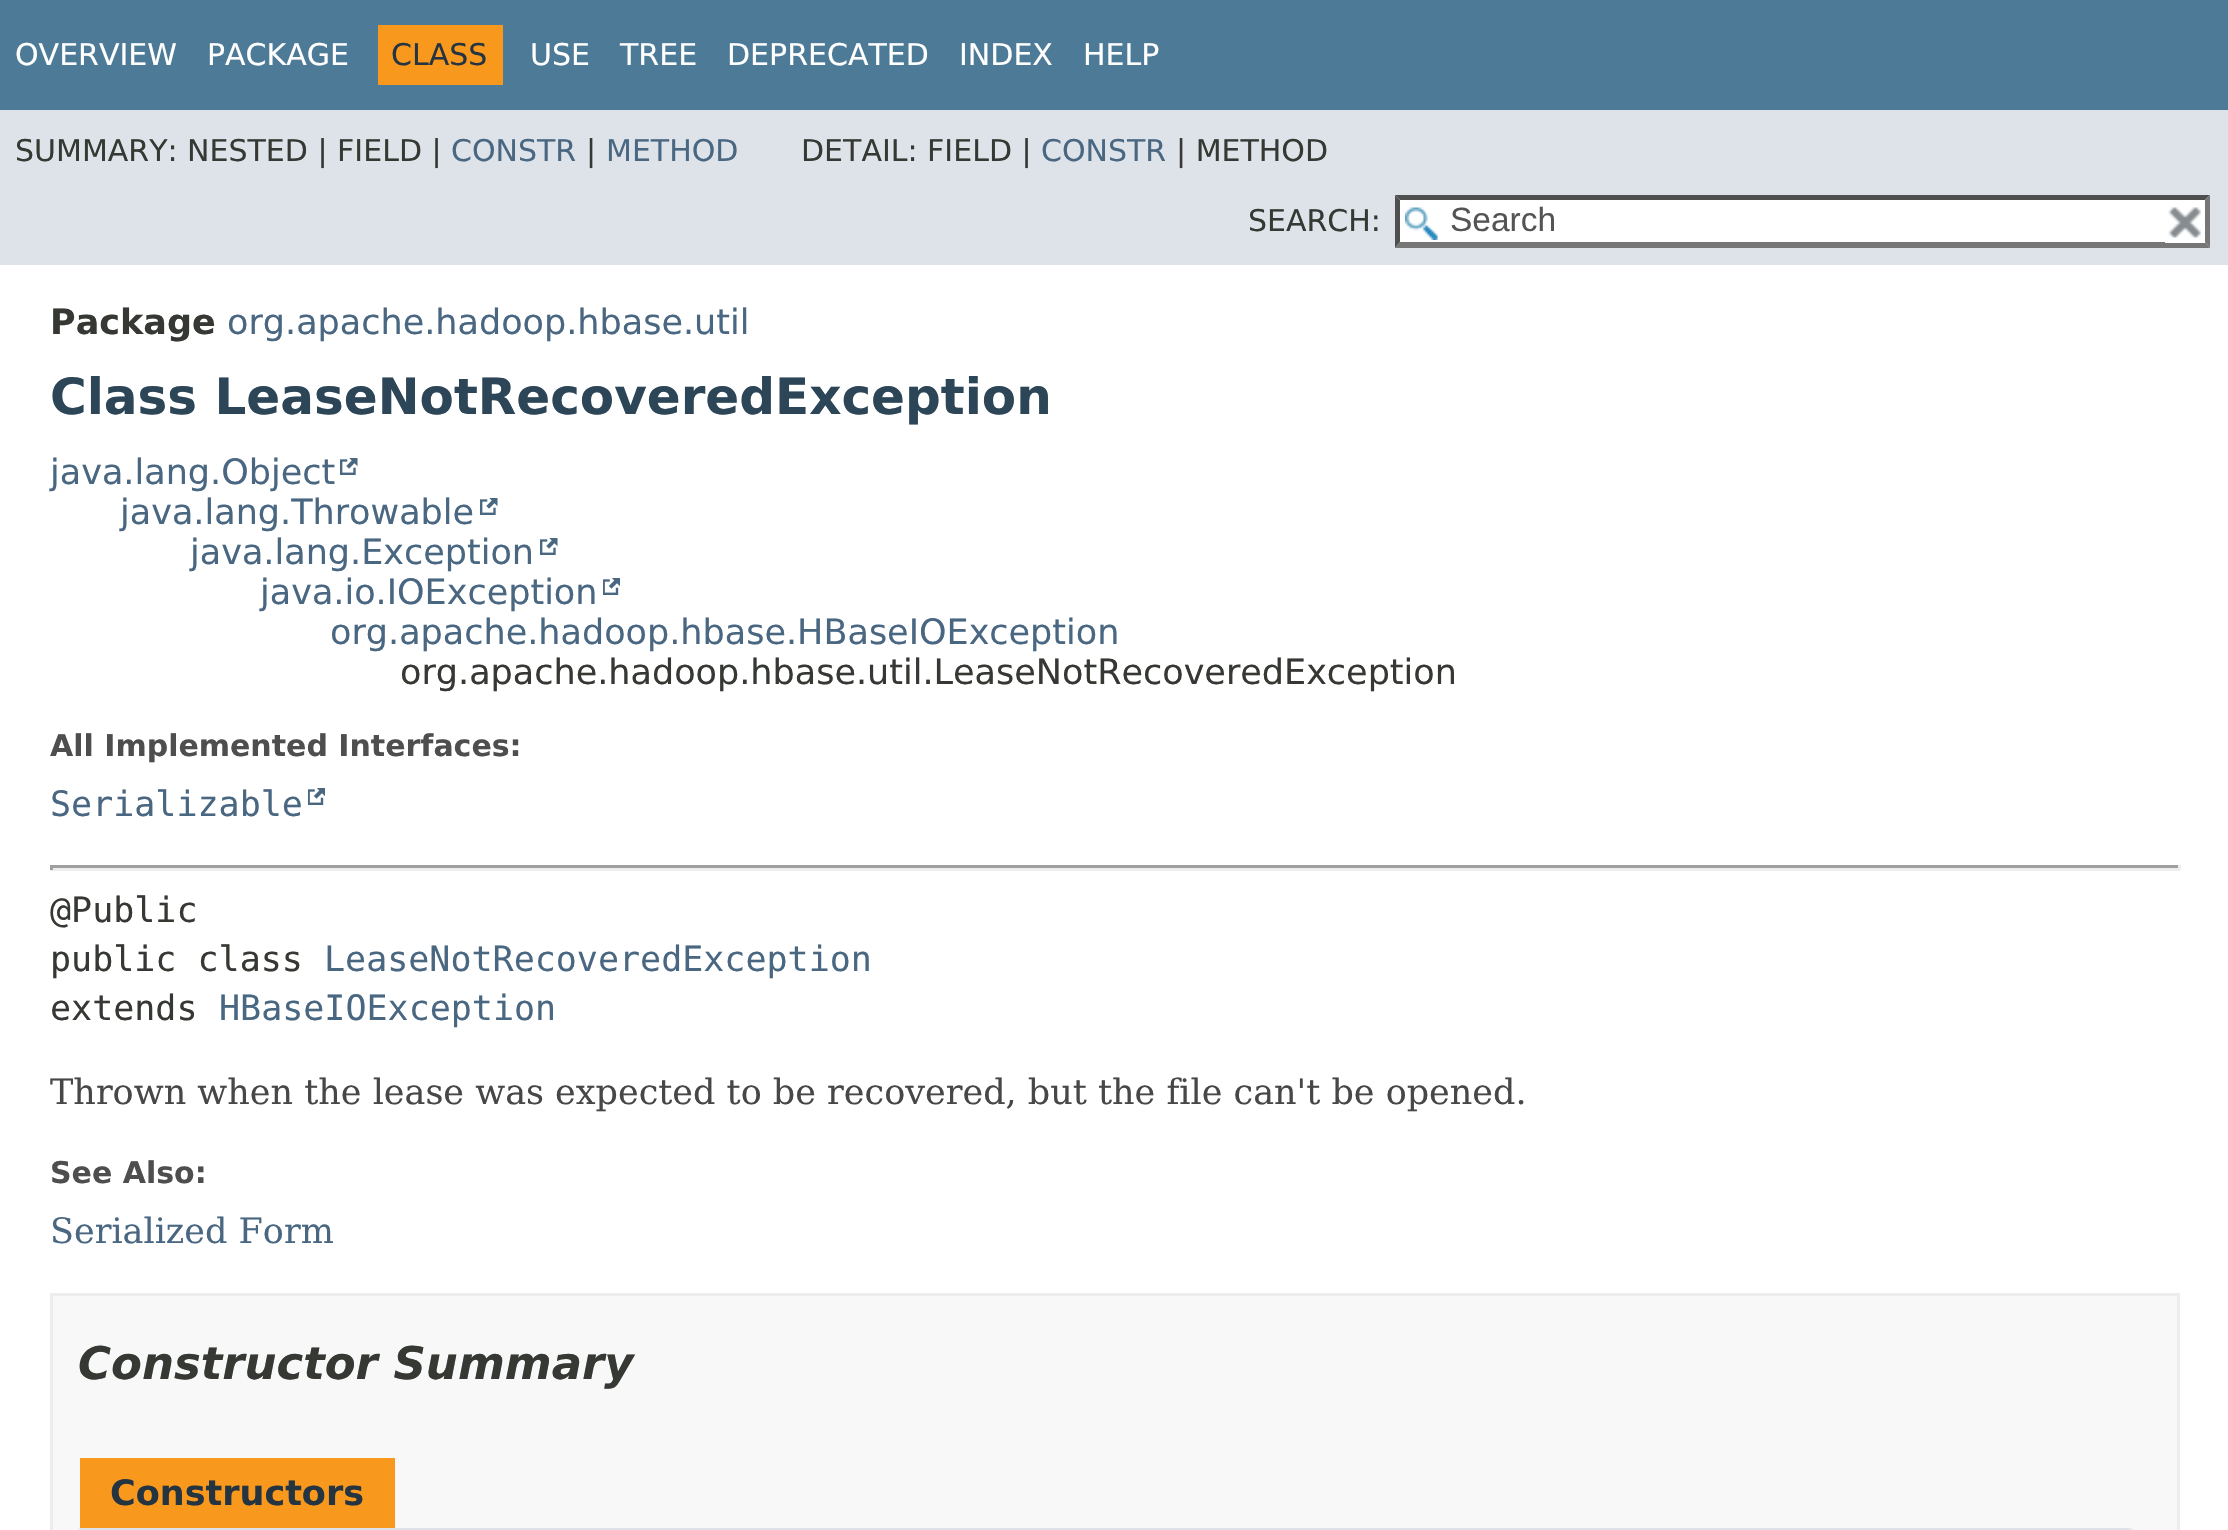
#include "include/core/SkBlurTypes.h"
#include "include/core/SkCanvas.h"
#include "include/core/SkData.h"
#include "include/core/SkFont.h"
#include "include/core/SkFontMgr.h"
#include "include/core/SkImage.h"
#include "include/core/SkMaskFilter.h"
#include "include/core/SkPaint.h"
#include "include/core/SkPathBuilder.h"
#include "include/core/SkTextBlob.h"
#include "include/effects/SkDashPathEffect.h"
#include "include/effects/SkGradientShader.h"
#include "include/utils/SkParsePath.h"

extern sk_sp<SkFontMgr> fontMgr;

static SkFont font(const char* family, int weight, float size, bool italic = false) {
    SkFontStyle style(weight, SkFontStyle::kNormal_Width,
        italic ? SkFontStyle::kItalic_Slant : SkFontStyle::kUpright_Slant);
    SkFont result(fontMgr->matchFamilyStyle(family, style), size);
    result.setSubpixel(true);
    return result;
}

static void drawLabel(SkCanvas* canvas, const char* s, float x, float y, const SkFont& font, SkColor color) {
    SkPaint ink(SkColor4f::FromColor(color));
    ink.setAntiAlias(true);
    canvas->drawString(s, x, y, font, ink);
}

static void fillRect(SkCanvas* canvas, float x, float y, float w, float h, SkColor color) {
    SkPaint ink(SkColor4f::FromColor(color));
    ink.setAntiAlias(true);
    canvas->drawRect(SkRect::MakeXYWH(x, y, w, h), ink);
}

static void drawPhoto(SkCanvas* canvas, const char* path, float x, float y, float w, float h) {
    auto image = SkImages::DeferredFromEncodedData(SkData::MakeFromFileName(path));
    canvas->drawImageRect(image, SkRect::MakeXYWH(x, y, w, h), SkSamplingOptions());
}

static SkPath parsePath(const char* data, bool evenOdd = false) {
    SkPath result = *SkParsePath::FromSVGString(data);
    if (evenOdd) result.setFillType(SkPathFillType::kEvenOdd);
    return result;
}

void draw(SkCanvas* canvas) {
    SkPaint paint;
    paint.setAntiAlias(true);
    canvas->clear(0xFFFFFFFF);
    fillRect(canvas, 0, 0, 2228, 110, 0xFF4D7A97);
    SkFont font1 = font("DejaVu Sans", 400, 30);
    drawLabel(canvas, "OVERVIEW", 15, 65, font1, 0xFFFFFFFF);
    drawLabel(canvas, "PACKAGE", 207, 65, font1, 0xFFFFFFFF);
    fillRect(canvas, 378, 25, 125, 60, 0xFFF8981D);
    drawLabel(canvas, "CLASS", 391, 65, font1, 0xFF253441);
    drawLabel(canvas, "USE", 530, 65, font1, 0xFFFFFFFF);
    drawLabel(canvas, "TREE", 620, 65, font1, 0xFFFFFFFF);
    drawLabel(canvas, "DEPRECATED", 727, 65, font1, 0xFFFFFFFF);
    drawLabel(canvas, "INDEX", 959, 65, font1, 0xFFFFFFFF);
    drawLabel(canvas, "HELP", 1083, 65, font1, 0xFFFFFFFF);
    fillRect(canvas, 0, 110, 2228, 155, 0xFFDEE3E9);
    drawLabel(canvas, "SUMMARY: NESTED | FIELD |", 15, 161, font1, 0xFF353833);
    drawLabel(canvas, "CONSTR", 451, 161, font1, 0xFF4A6782);
    drawLabel(canvas, "|", 586, 161, font1, 0xFF353833);
    drawLabel(canvas, "METHOD", 606, 161, font1, 0xFF4A6782);
    drawLabel(canvas, "DETAIL: FIELD |", 801, 161, font1, 0xFF353833);
    drawLabel(canvas, "CONSTR", 1041, 161, font1, 0xFF4A6782);
    drawLabel(canvas, "| METHOD", 1176, 161, font1, 0xFF353833);
    drawLabel(canvas, "SEARCH:", 1248, 231, font1, 0xFF353833);
    fillRect(canvas, 1395, 195, 815, 53, 0xFFFFFFFF);
    drawPhoto(canvas, "assets/img1.png", 1405, 207, 33, 33);
    paint.setColor(0xFF4F4F4F);
    canvas->drawPath(parsePath("M1395 195H2210L2205 200H1400Z"), paint);
    paint.setColor(0xFF767676);
    canvas->drawPath(parsePath("M2210 195V248L2205 242V200Z"), paint);
    canvas->drawPath(parsePath("M2210 248H1395L1400 242H2205Z"), paint);
    paint.setColor(0xFF4F4F4F);
    canvas->drawPath(parsePath("M1395 248V195L1400 200V242Z"), paint);
    SkFont font2 = font("Liberation Sans", 400, 33.5f);
    drawLabel(canvas, "Search", 1450, 231, font2, 0xFF545454);
    fillRect(canvas, 2165, 242, 40, 1, 0xFFFFFFFF);
    drawPhoto(canvas, "assets/img2.png", 2168, 207, 33, 31);
    SkFont font3 = font("DejaVu Sans", 700, 35);
    drawLabel(canvas, "Package", 50, 334, font3, 0xFF353833);
    SkFont font4 = font("DejaVu Sans", 400, 35);
    drawLabel(canvas, "org.apache.hadoop.hbase.util", 227, 334, font4, 0xFF4A6782);
    SkFont font5 = font("DejaVu Sans", 700, 50);
    drawLabel(canvas, "Class LeaseNotRecoveredException", 50, 414, font5, 0xFF2C4557);
    drawLabel(canvas, "java.lang.Object", 50, 484, font4, 0xFF4A6782);
    drawPhoto(canvas, "assets/img3.png", 340, 458, 18, 17);
    drawLabel(canvas, "java.lang.Throwable", 120, 524, font4, 0xFF4A6782);
    drawPhoto(canvas, "assets/img3.png", 480, 498, 18, 17);
    drawLabel(canvas, "java.lang.Exception", 190, 564, font4, 0xFF4A6782);
    drawPhoto(canvas, "assets/img3.png", 540, 538, 18, 17);
    drawLabel(canvas, "java.io.IOException", 260, 604, font4, 0xFF4A6782);
    drawPhoto(canvas, "assets/img4.png", 603, 578, 17, 17);
    drawLabel(canvas, "org.apache.hadoop.hbase.HBaseIOException", 330, 644, font4, 0xFF4A6782);
    drawLabel(canvas, "org.apache.hadoop.hbase.util.LeaseNotRecoveredException", 400, 684, font4, 0xFF353833);
    SkFont font6 = font("DejaVu Sans", 700, 30);
    drawLabel(canvas, "All Implemented Interfaces:", 50, 756, font6, 0xFF4E4E4E);
    SkFont font7 = font("DejaVu Sans Mono", 400, 35);
    drawLabel(canvas, "Serializable", 50, 816, font7, 0xFF4A6782);
    drawPhoto(canvas, "assets/img4.png", 308, 788, 17, 17);
    fillRect(canvas, 50, 865, 2130, 3, 0xFF9F9F9F);
    fillRect(canvas, 2178, 865, 3, 5, 0xFFEEEEEE);
    fillRect(canvas, 50, 868, 2130, 3, 0xFFEEEEEE);
    fillRect(canvas, 50, 865, 3, 5, 0xFF9F9F9F);
    drawLabel(canvas, "@Public", 50, 922, font7, 0xFF353833);
    drawLabel(canvas, "public class", 50, 971, font7, 0xFF353833);
    drawLabel(canvas, "LeaseNotRecoveredException", 324, 971, font7, 0xFF4A6782);
    drawLabel(canvas, "extends", 50, 1020, font7, 0xFF353833);
    drawLabel(canvas, "HBaseIOException", 219, 1020, font7, 0xFF4A6782);
    SkFont font8 = font("DejaVu Serif", 400, 35);
    drawLabel(canvas, "Thrown when the lease was expected to be recovered, but the file can't be opened.", 50, 1104, font8, 0xFF474747);
    drawLabel(canvas, "See Also:", 50, 1183, font6, 0xFF4E4E4E);
    drawLabel(canvas, "Serialized Form", 50, 1243, font8, 0xFF4A6782);
    paint.setColor(0xFFF8F8F8);
    canvas->drawRect(SkRect::MakeXYWH(51.5f, 1294.5f, 2127, 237), paint);
    paint.setStroke(true);
    paint.setStrokeWidth(3);
    paint.setColor(0xFFEDEDED);
    canvas->drawRect(SkRect::MakeXYWH(51.5f, 1294.5f, 2127, 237), paint);
    SkFont font9 = font("DejaVu Sans", 700, 45, true);
    drawLabel(canvas, "Constructor Summary", 78, 1379, font9, 0xFF353833);
    fillRect(canvas, 80, 1458, 315, 70, 0xFFF8981D);
    drawLabel(canvas, "Constructors", 110, 1505, font3, 0xFF253441);
    fillRect(canvas, 2130, 1528, 3, 2, 0xFFEEEEEE);
    fillRect(canvas, 78, 1528, 3, 2, 0xFFEEEEEE);
    fillRect(canvas, 80, 1528, 2050, 2, 0xFFDEE3E9);
}
